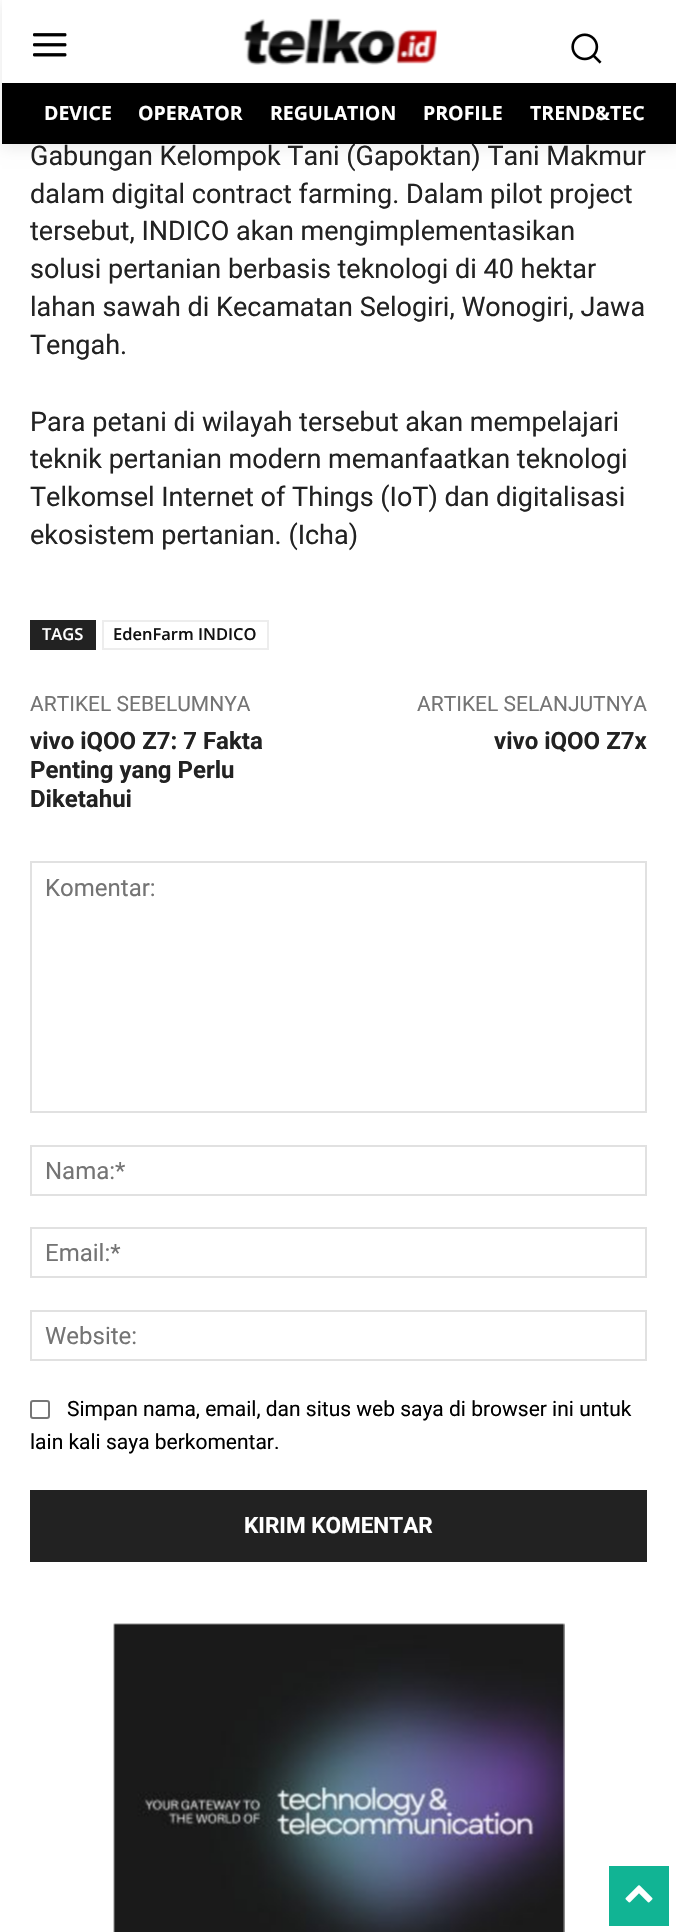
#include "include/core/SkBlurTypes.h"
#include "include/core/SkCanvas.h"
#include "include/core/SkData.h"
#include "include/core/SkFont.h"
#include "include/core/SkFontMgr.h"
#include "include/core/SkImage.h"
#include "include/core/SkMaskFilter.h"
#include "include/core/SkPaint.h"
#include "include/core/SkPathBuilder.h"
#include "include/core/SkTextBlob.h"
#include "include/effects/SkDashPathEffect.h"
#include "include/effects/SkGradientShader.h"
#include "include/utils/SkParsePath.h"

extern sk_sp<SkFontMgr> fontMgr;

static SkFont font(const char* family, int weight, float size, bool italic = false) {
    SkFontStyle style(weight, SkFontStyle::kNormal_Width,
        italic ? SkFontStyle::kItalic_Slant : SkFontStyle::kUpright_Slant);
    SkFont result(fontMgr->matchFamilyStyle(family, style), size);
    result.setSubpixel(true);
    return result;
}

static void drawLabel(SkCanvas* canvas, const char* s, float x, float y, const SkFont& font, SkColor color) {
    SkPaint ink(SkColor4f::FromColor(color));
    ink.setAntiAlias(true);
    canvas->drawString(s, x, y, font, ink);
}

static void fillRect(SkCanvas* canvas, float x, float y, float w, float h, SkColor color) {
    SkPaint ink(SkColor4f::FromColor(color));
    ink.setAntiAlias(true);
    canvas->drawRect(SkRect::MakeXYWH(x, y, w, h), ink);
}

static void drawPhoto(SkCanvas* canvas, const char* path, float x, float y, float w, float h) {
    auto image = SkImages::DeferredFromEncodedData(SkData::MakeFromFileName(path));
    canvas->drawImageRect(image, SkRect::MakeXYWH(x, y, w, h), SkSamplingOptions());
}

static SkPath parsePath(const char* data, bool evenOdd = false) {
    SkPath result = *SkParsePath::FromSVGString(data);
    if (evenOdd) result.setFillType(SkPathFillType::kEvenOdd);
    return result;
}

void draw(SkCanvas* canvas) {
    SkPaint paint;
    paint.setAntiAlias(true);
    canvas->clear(0xFFFFFFFF);
    drawPhoto(canvas, "assets/img1.png", 33, 33, 34, 24);
    drawPhoto(canvas, "assets/img2.png", 243, 18, 194, 47);
    drawPhoto(canvas, "assets/img3.png", 571, 33, 31, 31);
    SkFont font1 = font("Roboto", 400, 27);
    drawLabel(canvas, "Gabungan Kelompok Tani (Gapoktan) Tani Makmur", 30, 165, font1, 0xFF222222);
    fillRect(canvas, 2, 83, 674, 61, 0xFF000000);
    canvas->save();
    canvas->clipPath(parsePath("M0 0H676V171H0ZM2 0H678V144H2Z", true), true);
    paint.setColor(0x17000000);
    paint.setMaskFilter(SkMaskFilter::MakeBlur(kNormal_SkBlurStyle, 7.5f));
    canvas->drawRect(SkRect::MakeXYWH(2, 3, 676, 144), paint);
    paint.setMaskFilter(nullptr);
    canvas->restore();
    SkFont font2 = font("Open Sans", 700, 19.5f);
    drawLabel(canvas, "DEVICE", 44, 120, font2, 0xFFFFFFFF);
    drawLabel(canvas, "OPERATOR", 138, 120, font2, 0xFFFFFFFF);
    drawLabel(canvas, "REGULATION", 270, 120, font2, 0xFFFFFFFF);
    drawLabel(canvas, "PROFILE", 423, 120, font2, 0xFFFFFFFF);
    drawLabel(canvas, "TREND&TEC", 530, 120, font2, 0xFFFFFFFF);
    drawLabel(canvas, "dalam digital contract farming. Dalam pilot project", 30, 203, font1, 0xFF222222);
    drawLabel(canvas, "tersebut, INDICO akan mengimplementasikan", 30, 240, font1, 0xFF222222);
    drawLabel(canvas, "solusi pertanian berbasis teknologi di 40 hektar", 30, 278, font1, 0xFF222222);
    drawLabel(canvas, "lahan sawah di Kecamatan Selogiri, Wonogiri, Jawa", 30, 316, font1, 0xFF222222);
    drawLabel(canvas, "Tengah.", 30, 354, font1, 0xFF222222);
    drawLabel(canvas, "Para petani di wilayah tersebut akan mempelajari", 30, 431, font1, 0xFF222222);
    drawLabel(canvas, "teknik pertanian modern memanfaatkan teknologi", 30, 468, font1, 0xFF222222);
    drawLabel(canvas, "Telkomsel Internet of Things (IoT) dan digitalisasi", 30, 506, font1, 0xFF222222);
    drawLabel(canvas, "ekosistem pertanian. (Icha)", 30, 544, font1, 0xFF222222);
    fillRect(canvas, 30, 620, 66, 30, 0xFF222222);
    SkFont font3 = font("Open Sans", 600, 16.5f);
    drawLabel(canvas, "TAGS", 42, 640, font3, 0xFFFFFFFF);
    paint.setStroke(true);
    paint.setStrokeWidth(2);
    paint.setColor(0xFFEDEDED);
    canvas->drawRect(SkRect::MakeXYWH(103, 621, 165, 28), paint);
    drawLabel(canvas, "EdenFarm INDICO", 113, 640, font3, 0xFF111111);
    SkFont font4 = font("Roboto", 400, 21);
    drawLabel(canvas, "ARTIKEL SEBELUMNYA", 30, 711, font4, 0xFF747474);
    SkFont font5 = font("Roboto", 700, 24);
    drawLabel(canvas, "vivo iQOO Z7: 7 Fakta", 30, 749, font5, 0xFF222222);
    drawLabel(canvas, "Penting yang Perlu", 30, 778, font5, 0xFF222222);
    drawLabel(canvas, "Diketahui", 30, 807, font5, 0xFF222222);
    drawLabel(canvas, "ARTIKEL SELANJUTNYA", 417, 711, font4, 0xFF747474);
    drawLabel(canvas, "vivo iQOO Z7x", 494, 749, font5, 0xFF222222);
    paint.setColor(0xFFE1E1E1);
    canvas->drawRect(SkRect::MakeXYWH(31, 862, 615, 250), paint);
    SkFont font6 = font("Roboto", 400, 24);
    drawLabel(canvas, "Komentar:", 45, 896, font6, 0xFF747474);
    canvas->drawRect(SkRect::MakeXYWH(31, 1146, 615, 49), paint);
    drawLabel(canvas, "Nama:*", 45, 1179, font6, 0xFF747474);
    canvas->drawRect(SkRect::MakeXYWH(31, 1228, 615, 49), paint);
    drawLabel(canvas, "Email:*", 45, 1261, font6, 0xFF747474);
    canvas->drawRect(SkRect::MakeXYWH(31, 1311, 615, 49), paint);
    drawLabel(canvas, "Website:", 45, 1344, font6, 0xFF747474);
    paint.setColor(0xFF767676);
    canvas->drawRoundRect(SkRect::MakeXYWH(31, 1401, 18, 17), 2, 2, paint);
    drawLabel(canvas, "Simpan nama, email, dan situs web saya di browser ini untuk", 67, 1416, font4, 0xFF000000);
    drawLabel(canvas, "lain kali saya berkomentar.", 30, 1449, font4, 0xFF000000);
    fillRect(canvas, 30, 1490, 617, 72, 0xFF222222);
    SkFont font7 = font("Roboto", 700, 22.5f);
    drawLabel(canvas, "KIRIM KOMENTAR", 244, 1533, font7, 0xFFFFFFFF);
    drawPhoto(canvas, "assets/img4.png", 113, 1623, 452, 309);
    fillRect(canvas, 609, 1866, 60, 60, 0xFF11B494);
    drawPhoto(canvas, "assets/img5.png", 625, 1885, 28, 18);
}
